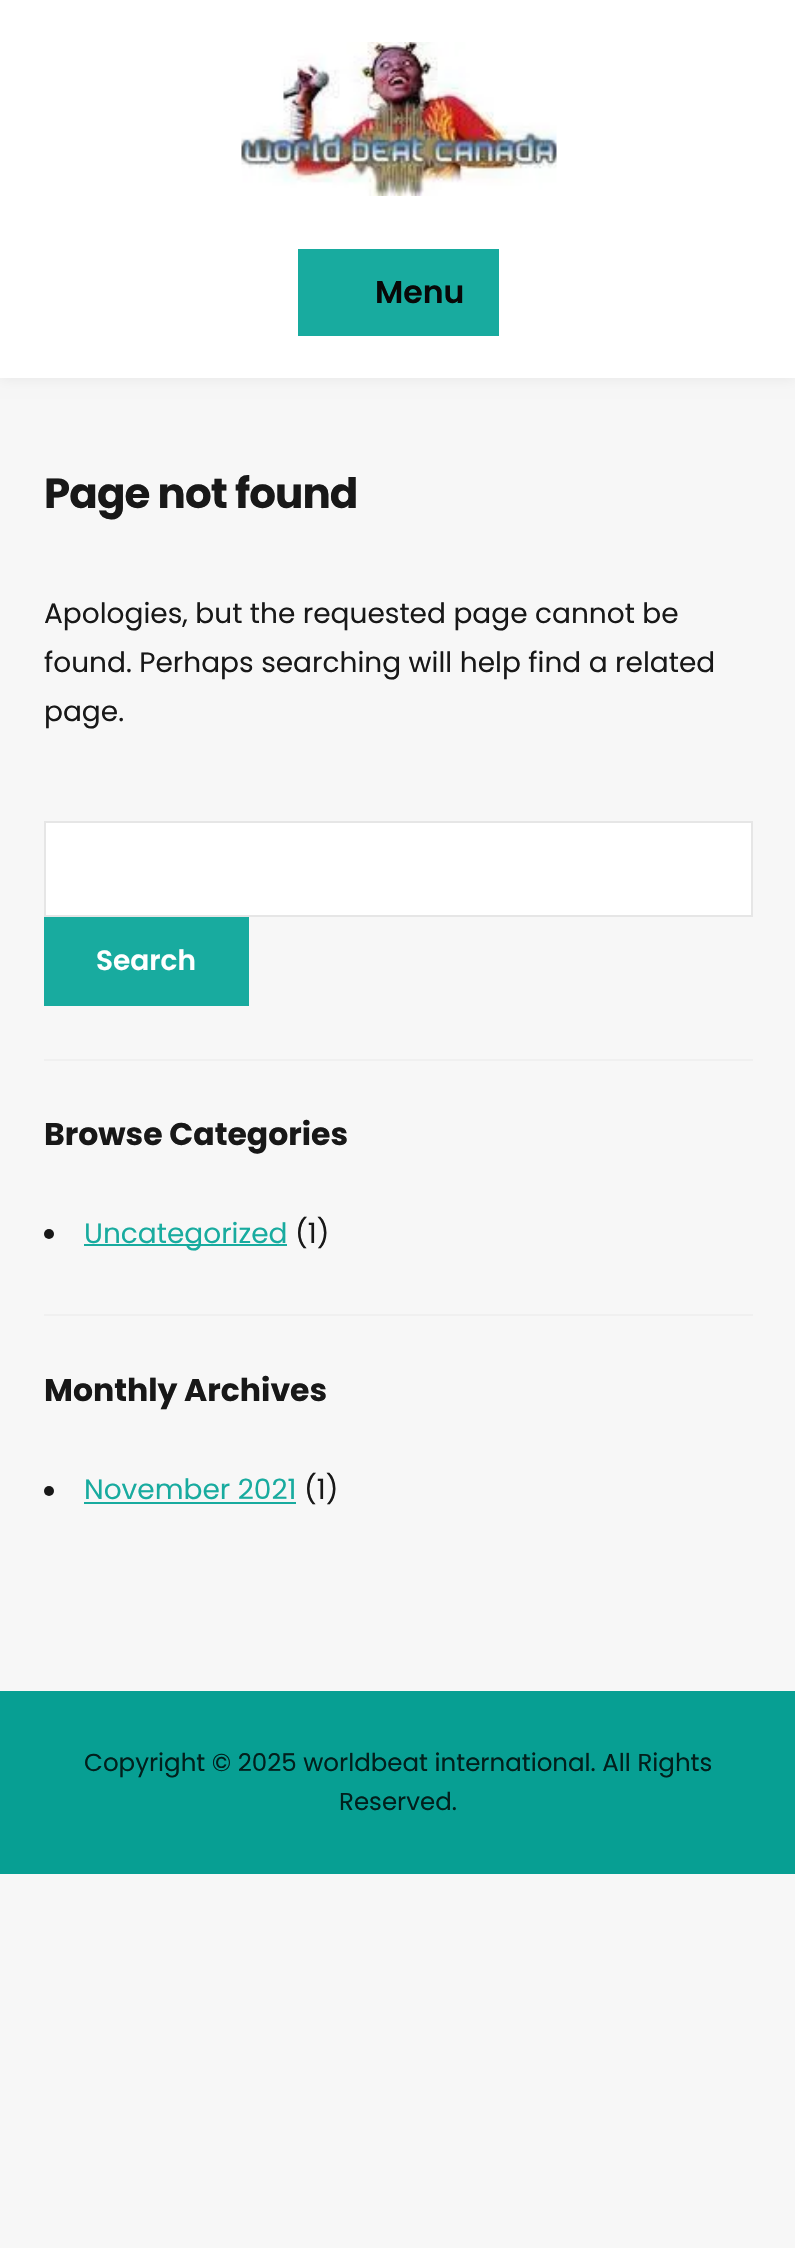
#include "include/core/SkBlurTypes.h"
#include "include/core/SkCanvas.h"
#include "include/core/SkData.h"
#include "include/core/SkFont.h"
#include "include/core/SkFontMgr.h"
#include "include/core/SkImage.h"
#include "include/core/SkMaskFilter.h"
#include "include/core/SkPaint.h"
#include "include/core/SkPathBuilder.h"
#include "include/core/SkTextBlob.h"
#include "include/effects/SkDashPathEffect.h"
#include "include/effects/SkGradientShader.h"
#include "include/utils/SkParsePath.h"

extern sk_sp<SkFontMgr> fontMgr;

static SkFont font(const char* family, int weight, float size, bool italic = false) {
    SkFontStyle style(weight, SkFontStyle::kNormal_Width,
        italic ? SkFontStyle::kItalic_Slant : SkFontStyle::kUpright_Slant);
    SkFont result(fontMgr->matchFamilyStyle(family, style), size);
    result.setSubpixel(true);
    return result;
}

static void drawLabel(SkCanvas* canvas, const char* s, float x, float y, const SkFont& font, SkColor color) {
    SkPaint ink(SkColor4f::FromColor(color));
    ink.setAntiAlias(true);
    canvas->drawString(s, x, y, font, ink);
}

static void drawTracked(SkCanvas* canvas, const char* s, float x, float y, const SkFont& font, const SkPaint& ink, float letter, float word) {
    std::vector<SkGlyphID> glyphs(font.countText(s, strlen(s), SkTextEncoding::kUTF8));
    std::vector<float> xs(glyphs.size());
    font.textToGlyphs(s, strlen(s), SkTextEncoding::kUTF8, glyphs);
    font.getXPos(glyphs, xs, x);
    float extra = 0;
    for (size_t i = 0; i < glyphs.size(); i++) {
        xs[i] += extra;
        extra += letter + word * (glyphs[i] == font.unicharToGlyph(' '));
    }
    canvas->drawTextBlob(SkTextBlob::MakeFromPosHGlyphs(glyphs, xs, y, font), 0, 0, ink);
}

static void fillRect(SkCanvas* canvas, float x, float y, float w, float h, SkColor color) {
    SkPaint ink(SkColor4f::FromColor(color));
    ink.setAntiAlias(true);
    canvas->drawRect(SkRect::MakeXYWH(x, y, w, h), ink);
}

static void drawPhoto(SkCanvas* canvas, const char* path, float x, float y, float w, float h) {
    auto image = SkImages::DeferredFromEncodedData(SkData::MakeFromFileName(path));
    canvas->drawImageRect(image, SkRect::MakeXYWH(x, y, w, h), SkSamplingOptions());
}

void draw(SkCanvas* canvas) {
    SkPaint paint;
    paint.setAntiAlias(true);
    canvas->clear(0xFFF7F7F7);
    paint.setColor(0x12000000);
    paint.setMaskFilter(SkMaskFilter::MakeBlur(kNormal_SkBlurStyle, 7));
    canvas->drawRect(SkRect::MakeXYWH(0, 0, 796, 378), paint);
    paint.setMaskFilter(nullptr);
    fillRect(canvas, 0, 0, 795, 378, 0xFFFFFFFF);
    drawPhoto(canvas, "assets/img1.png", 241, 42, 316, 154);
    fillRect(canvas, 298, 249, 201, 87, 0xFF18AB9F);
    SkFont font1 = font("Poppins", 600, 31.5f);
    drawLabel(canvas, "Menu", 375, 303, font1, 0xFF080808);
    SkFont font2 = font("Poppins", 700, 42);
    paint.setColor(0xFF181818);
    drawTracked(canvas, "Page not found", 44, 508, font2, paint, -0.9f, 0);
    SkFont font3 = font("Poppins", 400, 28);
    drawLabel(canvas, "Apologies, but the requested page cannot be", 44, 623, font3, 0xFF181818);
    drawLabel(canvas, "found. Perhaps searching will help find a related", 44, 672, font3, 0xFF181818);
    drawLabel(canvas, "page.", 44, 721, font3, 0xFF181818);
    paint.setColor(0xFFFFFFFF);
    canvas->drawRect(SkRect::MakeXYWH(45, 822, 707, 94), paint);
    paint.setStroke(true);
    paint.setStrokeWidth(2);
    paint.setColor(0xFFE6E6E6);
    canvas->drawRect(SkRect::MakeXYWH(45, 822, 707, 94), paint);
    fillRect(canvas, 44, 917, 205, 89, 0xFF18AB9F);
    SkFont font4 = font("Poppins", 600, 28);
    drawLabel(canvas, "Search", 96, 970, font4, 0xFFFFFFFF);
    fillRect(canvas, 44, 1059, 709, 2, 0xFFF0F0F0);
    SkFont font5 = font("Poppins", 700, 31.5f);
    drawLabel(canvas, "Browse Categories", 44, 1145, font5, 0xFF181818);
    paint.setStroke(false);
    paint.setColor(0xFF181818);
    canvas->drawCircle(49, 1234, 5, paint);
    fillRect(canvas, 84, 1244, 203, 2, 0xFF18AB9F);
    drawLabel(canvas, "Uncategorized", 84, 1243, font3, 0xFF18AB9F);
    drawLabel(canvas, "(1)", 295, 1243, font3, 0xFF181818);
    fillRect(canvas, 44, 1314, 709, 2, 0xFFF0F0F0);
    drawLabel(canvas, "Monthly Archives", 44, 1401, font5, 0xFF181818);
    canvas->drawCircle(49, 1491, 5, paint);
    drawLabel(canvas, "November 2021", 84, 1499, font3, 0xFF18AB9F);
    fillRect(canvas, 84, 1502, 212, 2, 0xFF18AB9F);
    drawLabel(canvas, "(1)", 304, 1499, font3, 0xFF181818);
    fillRect(canvas, 0, 1691, 795, 183, 0xFF079F93);
    SkFont font6 = font("Poppins", 400, 24.5f);
    drawLabel(canvas, "Copyright © 2025 worldbeat international. All Rights", 84, 1771, font6, 0xFF01201D);
    drawLabel(canvas, "Reserved.", 339, 1810, font6, 0xFF01201D);
}
